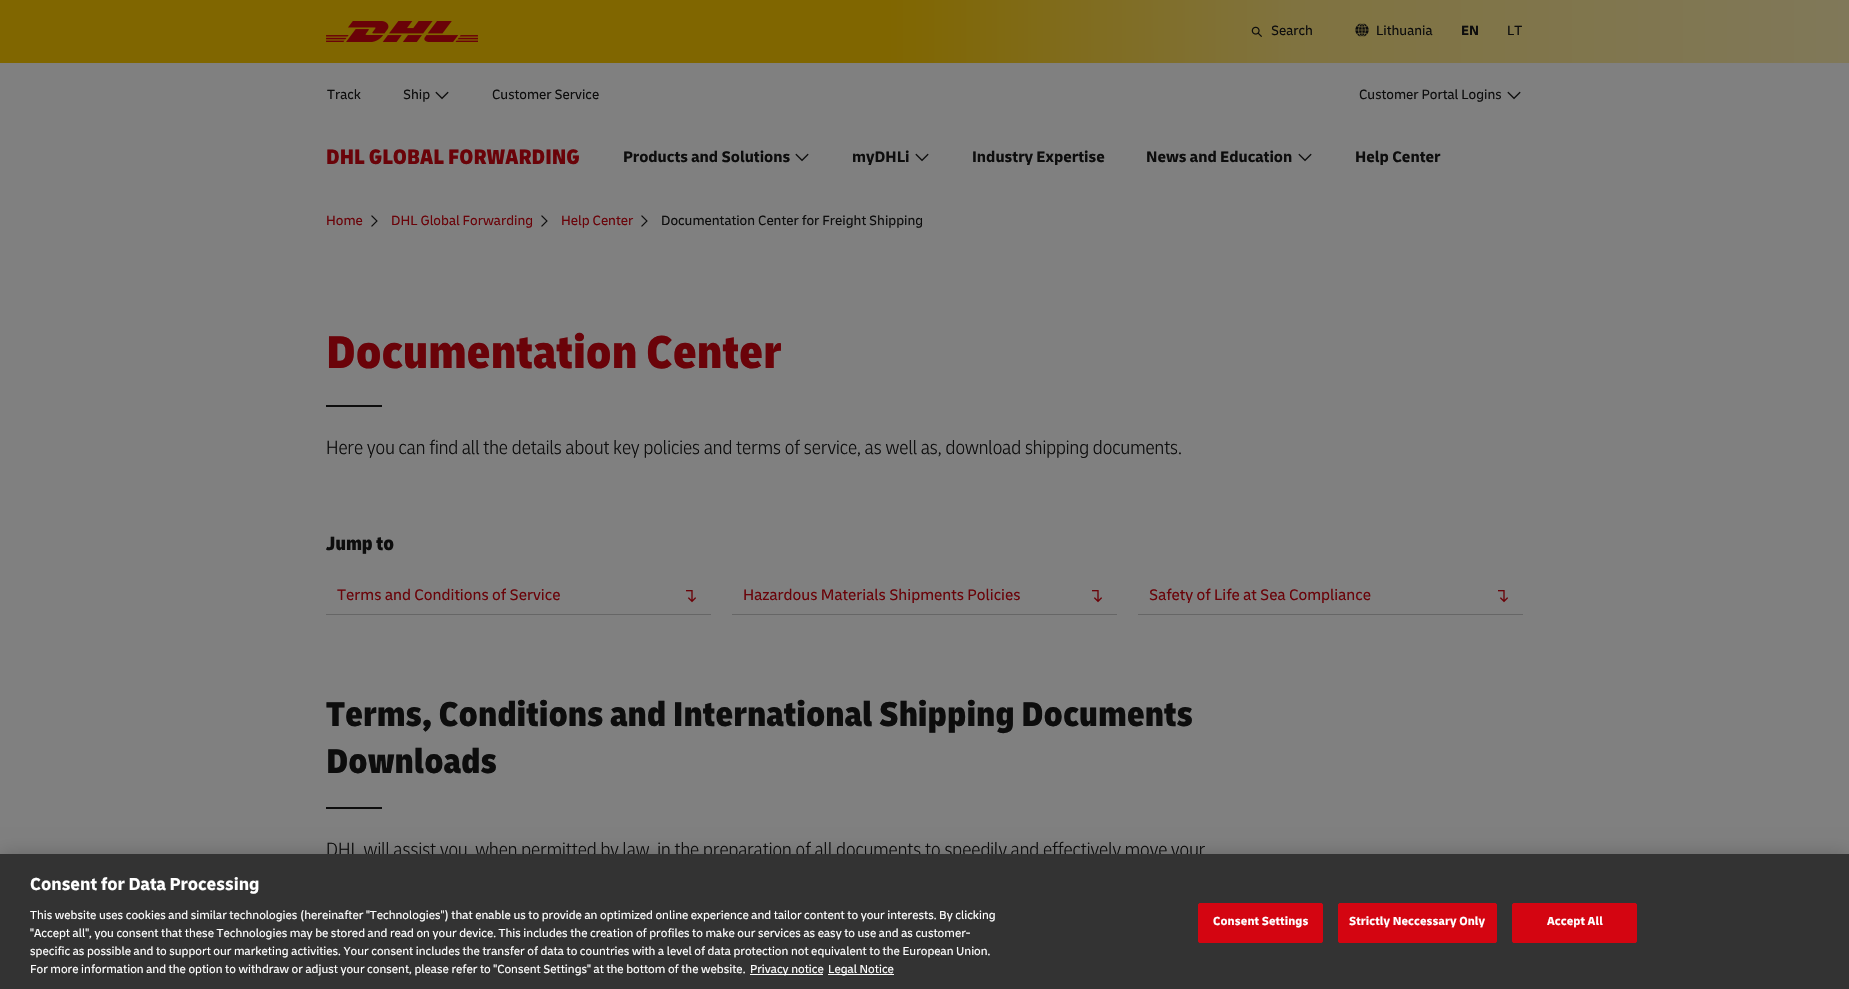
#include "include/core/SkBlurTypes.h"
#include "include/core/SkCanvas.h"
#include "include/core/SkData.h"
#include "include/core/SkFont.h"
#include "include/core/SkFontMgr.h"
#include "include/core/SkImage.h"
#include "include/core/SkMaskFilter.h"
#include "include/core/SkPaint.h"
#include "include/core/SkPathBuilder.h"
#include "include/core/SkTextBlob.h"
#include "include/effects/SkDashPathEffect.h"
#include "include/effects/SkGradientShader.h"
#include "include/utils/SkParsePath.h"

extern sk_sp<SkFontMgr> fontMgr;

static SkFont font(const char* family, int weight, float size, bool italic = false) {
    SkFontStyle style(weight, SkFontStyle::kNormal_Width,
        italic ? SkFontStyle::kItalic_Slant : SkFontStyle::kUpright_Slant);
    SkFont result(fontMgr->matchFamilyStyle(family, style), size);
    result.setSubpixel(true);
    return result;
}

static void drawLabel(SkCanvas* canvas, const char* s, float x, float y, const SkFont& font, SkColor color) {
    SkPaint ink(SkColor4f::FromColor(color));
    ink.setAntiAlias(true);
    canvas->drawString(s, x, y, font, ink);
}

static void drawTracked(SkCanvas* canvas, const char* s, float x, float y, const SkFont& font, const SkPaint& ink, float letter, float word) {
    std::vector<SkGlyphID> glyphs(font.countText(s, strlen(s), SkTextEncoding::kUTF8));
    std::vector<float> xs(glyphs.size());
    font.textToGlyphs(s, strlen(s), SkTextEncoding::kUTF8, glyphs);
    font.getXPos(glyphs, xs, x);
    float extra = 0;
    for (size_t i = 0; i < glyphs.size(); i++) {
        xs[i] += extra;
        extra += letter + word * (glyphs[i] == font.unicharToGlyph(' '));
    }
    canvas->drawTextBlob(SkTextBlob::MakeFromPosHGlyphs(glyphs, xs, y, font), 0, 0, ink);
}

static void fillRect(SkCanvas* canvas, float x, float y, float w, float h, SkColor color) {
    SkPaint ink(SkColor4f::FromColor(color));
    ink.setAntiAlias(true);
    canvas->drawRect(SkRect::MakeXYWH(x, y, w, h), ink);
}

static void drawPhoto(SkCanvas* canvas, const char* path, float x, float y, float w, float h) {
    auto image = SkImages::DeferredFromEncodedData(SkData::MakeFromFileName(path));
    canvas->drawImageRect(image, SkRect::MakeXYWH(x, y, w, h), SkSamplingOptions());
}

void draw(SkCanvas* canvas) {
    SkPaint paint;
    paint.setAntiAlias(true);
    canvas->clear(0xFF808080);
    {
        const SkColor colors[] = {0xFF806600, 0xFF806600, 0xFF807340, 0xFF807859};
        const float stops[] = {0, 0.48f, 0.7f, 1};
        const SkPoint ends[] = {{0, 32}, {1849, 31}};
        paint.setShader(SkGradientShader::MakeLinear(ends, colors, stops, 4, SkTileMode::kClamp));
        paint.setAlpha(255);
    }
    canvas->drawRect(SkRect::MakeXYWH(0, 0, 1849, 63), paint);
    drawPhoto(canvas, "assets/img1.png", 326, 21, 152, 21);
    drawPhoto(canvas, "assets/img2.png", 1251, 26, 11, 11);
    SkFont font1 = font("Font", 400, 14);
    drawLabel(canvas, "Search", 1271, 35, font1, 0xFF0D0D0D);
    drawPhoto(canvas, "assets/img3.png", 1355, 23, 14, 14);
    drawLabel(canvas, "Lithuania", 1376, 35, font1, 0xFF0D0D0D);
    SkFont font2 = font("Font", 700, 14);
    drawLabel(canvas, "EN", 1461, 35, font2, 0xFF0D0D0D);
    drawLabel(canvas, "LT", 1507, 35, font1, 0xFF0D0D0D);
    drawLabel(canvas, "Track", 327, 99, font1, 0xFF0D0D0D);
    drawLabel(canvas, "Ship", 403, 99, font1, 0xFF0D0D0D);
    drawPhoto(canvas, "assets/img4.png", 435, 91, 14, 9);
    drawLabel(canvas, "Customer Service", 492, 99, font1, 0xFF0D0D0D);
    drawLabel(canvas, "Customer Portal Logins", 1359, 99, font1, 0xFF0D0D0D);
    drawPhoto(canvas, "assets/img4.png", 1507, 91, 14, 9);
    SkFont font3 = font("Font", 800, 22);
    drawLabel(canvas, "DHL GLOBAL FORWARDING", 326, 164, font3, 0xFF6A0309);
    SkFont font4 = font("Font", 700, 16);
    drawLabel(canvas, "Products and Solutions", 623, 162, font4, 0xFF0D0D0D);
    drawPhoto(canvas, "assets/img4.png", 795, 153, 14, 9);
    drawLabel(canvas, "myDHLi", 852, 162, font4, 0xFF0D0D0D);
    drawPhoto(canvas, "assets/img4.png", 915, 153, 14, 9);
    drawLabel(canvas, "Industry Expertise", 972, 162, font4, 0xFF0D0D0D);
    drawLabel(canvas, "News and Education", 1146, 162, font4, 0xFF0D0D0D);
    drawPhoto(canvas, "assets/img4.png", 1298, 153, 14, 9);
    drawLabel(canvas, "Help Center", 1355, 162, font4, 0xFF0D0D0D);
    drawLabel(canvas, "Home", 326, 225, font1, 0xFF6A0309);
    drawPhoto(canvas, "assets/img5.png", 371, 215, 7, 12);
    drawLabel(canvas, "DHL Global Forwarding", 391, 225, font1, 0xFF6A0309);
    drawPhoto(canvas, "assets/img5.png", 541, 215, 7, 12);
    drawLabel(canvas, "Help Center", 561, 225, font1, 0xFF6A0309);
    drawPhoto(canvas, "assets/img5.png", 641, 215, 7, 12);
    drawLabel(canvas, "Documentation Center for Freight Shipping", 661, 225, font1, 0xFF0D0D0D);
    SkFont font5 = font("Font", 800, 48);
    drawLabel(canvas, "Documentation Center", 326, 368, font5, 0xFF6A0309);
    fillRect(canvas, 326, 405, 56, 2, 0xFF0D0D0D);
    SkFont font6 = font("Font", 300, 20);
    drawLabel(canvas, "Here you can find all the details about key policies and terms of service, as well as, download shipping documents.", 326, 454, font6, 0xFF0D0D0D);
    SkFont font7 = font("Font", 800, 20);
    drawLabel(canvas, "Jump to", 326, 550, font7, 0xFF0D0D0D);
    fillRect(canvas, 326, 614, 385, 1, 0xFF666666);
    SkFont font8 = font("Font", 400, 16);
    drawLabel(canvas, "Terms and Conditions of Service", 337, 600, font8, 0xFF6A0309);
    drawPhoto(canvas, "assets/img6.png", 686, 590, 10, 13);
    fillRect(canvas, 732, 614, 385, 1, 0xFF666666);
    drawLabel(canvas, "Hazardous Materials Shipments Policies", 743, 600, font8, 0xFF6A0309);
    drawPhoto(canvas, "assets/img6.png", 1092, 590, 10, 13);
    fillRect(canvas, 1138, 614, 385, 1, 0xFF666666);
    drawLabel(canvas, "Safety of Life at Sea Compliance", 1149, 600, font8, 0xFF6A0309);
    drawPhoto(canvas, "assets/img6.png", 1498, 590, 10, 13);
    SkFont font9 = font("Font", 800, 36);
    drawLabel(canvas, "Terms, Conditions and International Shipping Documents", 326, 726, font9, 0xFF0D0D0D);
    drawLabel(canvas, "Downloads", 326, 773, font9, 0xFF0D0D0D);
    fillRect(canvas, 326, 807, 56, 2, 0xFF0D0D0D);
    drawLabel(canvas, "DHL will assist you, when permitted by law, in the preparation of all documents to speedily and effectively move your", 326, 856, font6, 0xFF0D0D0D);
    paint.setShader(nullptr);
    paint.setColor(0x33000000);
    paint.setMaskFilter(SkMaskFilter::MakeBlur(kNormal_SkBlurStyle, 9));
    canvas->drawRect(SkRect::MakeXYWH(0, 854, 1849, 135), paint);
    paint.setMaskFilter(nullptr);
    fillRect(canvas, 0, 854, 1849, 135, 0xFF333333);
    SkFont font10 = font("Font", 700, 18);
    drawLabel(canvas, "Consent for Data Processing", 30, 890, font10, 0xFFFFFFFF);
    SkFont font11 = font("Font", 400, 12.2f);
    drawLabel(canvas, "This website uses cookies and similar technologies (hereinafter \"Technologies\") that enable us to provide an optimized online experience and tailor content to your interests. By clicking", 30, 919, font11, 0xFFFFFFFF);
    drawLabel(canvas, "\"Accept all\", you consent that these Technologies may be stored and read on your device. This includes the creation of profiles to make our services as easy to use and as customer-", 30, 937, font11, 0xFFFFFFFF);
    drawLabel(canvas, "specific as possible and to support our marketing activities. Your consent includes the transfer of data to countries with a level of data protection not equivalent to the European Union.", 30, 955, font11, 0xFFFFFFFF);
    drawLabel(canvas, "For more information and the option to withdraw or adjust your consent, please refer to \"Consent Settings\" at the bottom of the website.", 30, 973, font11, 0xFFFFFFFF);
    fillRect(canvas, 750, 974, 73, 1, 0xFFFFFFFF);
    drawLabel(canvas, "Privacy notice", 750, 973, font11, 0xFFFFFFFF);
    fillRect(canvas, 828, 974, 66, 1, 0xFFFFFFFF);
    drawLabel(canvas, "Legal Notice", 828, 973, font11, 0xFFFFFFFF);
    paint.setColor(0xFFD40511);
    canvas->drawRoundRect(SkRect::MakeXYWH(1198.5f, 903.5f, 124, 39), 1.5f, 1.5f, paint);
    paint.setStroke(true);
    paint.setStrokeWidth(1);
    canvas->drawRoundRect(SkRect::MakeXYWH(1198.5f, 903.5f, 124, 39), 1.5f, 1.5f, paint);
    SkFont font12 = font("Font", 700, 12.2f);
    paint.setStroke(false);
    paint.setColor(0xFFFFFFFF);
    drawTracked(canvas, "Consent Settings", 1213, 925, font12, paint, 0.1f, 0);
    paint.setColor(0xFFD40511);
    canvas->drawRoundRect(SkRect::MakeXYWH(1338.5f, 903.5f, 158, 39), 1.5f, 1.5f, paint);
    paint.setStroke(true);
    canvas->drawRoundRect(SkRect::MakeXYWH(1338.5f, 903.5f, 158, 39), 1.5f, 1.5f, paint);
    paint.setStroke(false);
    paint.setColor(0xFFFFFFFF);
    drawTracked(canvas, "Strictly Neccessary Only", 1349, 925, font12, paint, 0.1f, 0);
    paint.setColor(0xFFD40511);
    canvas->drawRoundRect(SkRect::MakeXYWH(1512.5f, 903.5f, 124, 39), 1.5f, 1.5f, paint);
    paint.setStroke(true);
    canvas->drawRoundRect(SkRect::MakeXYWH(1512.5f, 903.5f, 124, 39), 1.5f, 1.5f, paint);
    paint.setStroke(false);
    paint.setColor(0xFFFFFFFF);
    drawTracked(canvas, "Accept All", 1547, 925, font12, paint, 0.1f, 0);
}
